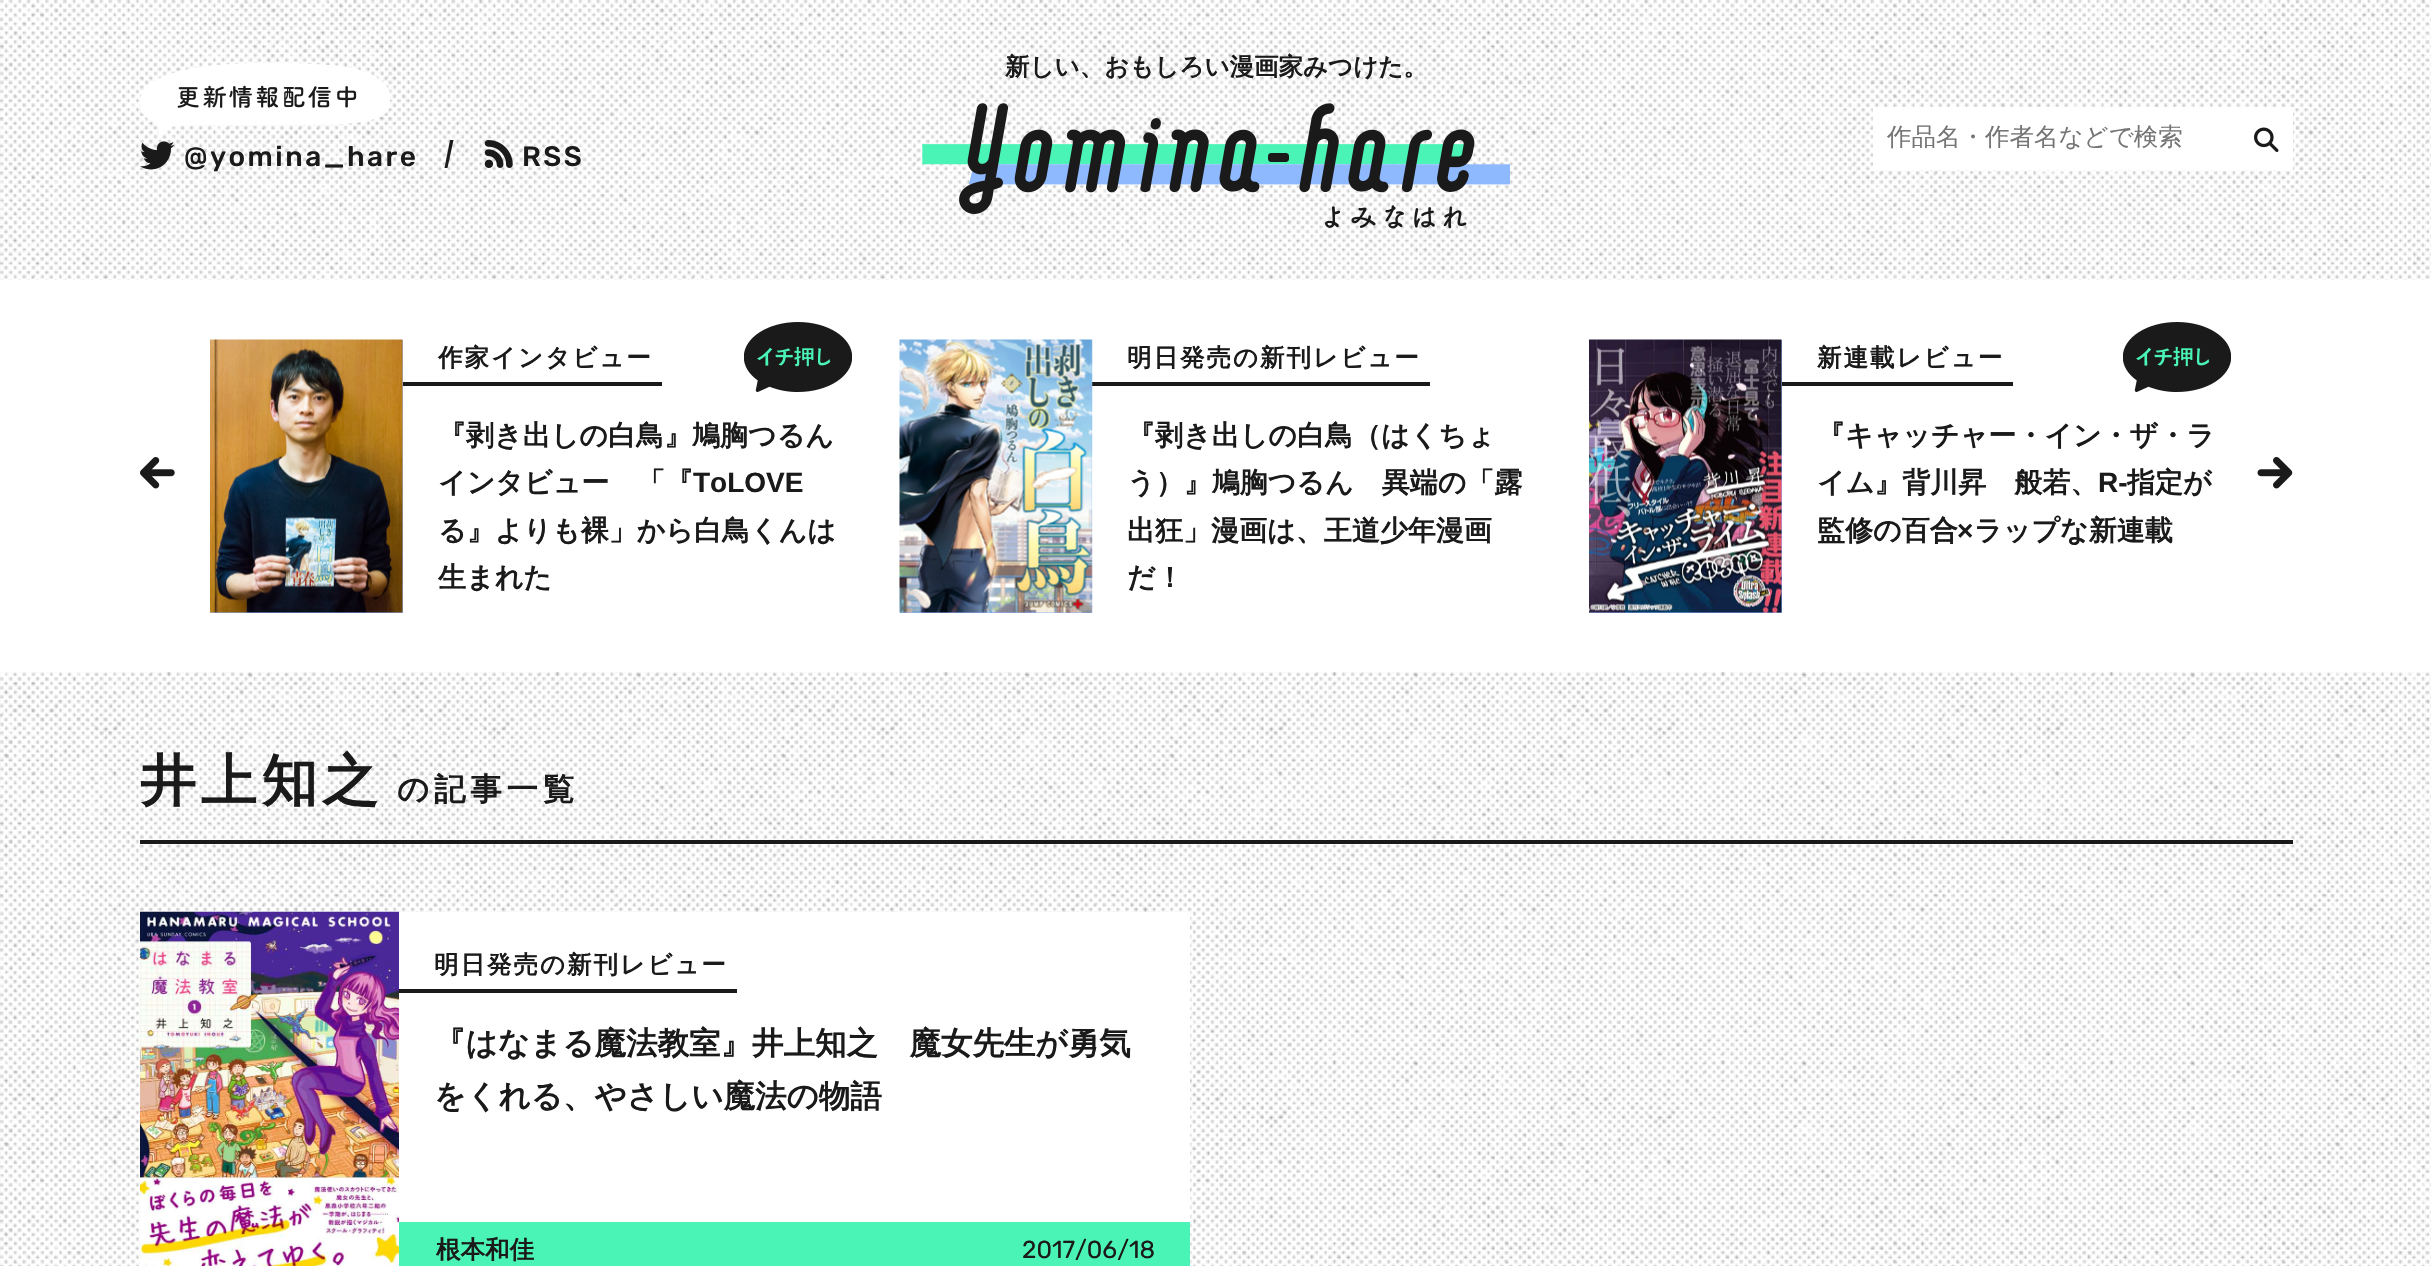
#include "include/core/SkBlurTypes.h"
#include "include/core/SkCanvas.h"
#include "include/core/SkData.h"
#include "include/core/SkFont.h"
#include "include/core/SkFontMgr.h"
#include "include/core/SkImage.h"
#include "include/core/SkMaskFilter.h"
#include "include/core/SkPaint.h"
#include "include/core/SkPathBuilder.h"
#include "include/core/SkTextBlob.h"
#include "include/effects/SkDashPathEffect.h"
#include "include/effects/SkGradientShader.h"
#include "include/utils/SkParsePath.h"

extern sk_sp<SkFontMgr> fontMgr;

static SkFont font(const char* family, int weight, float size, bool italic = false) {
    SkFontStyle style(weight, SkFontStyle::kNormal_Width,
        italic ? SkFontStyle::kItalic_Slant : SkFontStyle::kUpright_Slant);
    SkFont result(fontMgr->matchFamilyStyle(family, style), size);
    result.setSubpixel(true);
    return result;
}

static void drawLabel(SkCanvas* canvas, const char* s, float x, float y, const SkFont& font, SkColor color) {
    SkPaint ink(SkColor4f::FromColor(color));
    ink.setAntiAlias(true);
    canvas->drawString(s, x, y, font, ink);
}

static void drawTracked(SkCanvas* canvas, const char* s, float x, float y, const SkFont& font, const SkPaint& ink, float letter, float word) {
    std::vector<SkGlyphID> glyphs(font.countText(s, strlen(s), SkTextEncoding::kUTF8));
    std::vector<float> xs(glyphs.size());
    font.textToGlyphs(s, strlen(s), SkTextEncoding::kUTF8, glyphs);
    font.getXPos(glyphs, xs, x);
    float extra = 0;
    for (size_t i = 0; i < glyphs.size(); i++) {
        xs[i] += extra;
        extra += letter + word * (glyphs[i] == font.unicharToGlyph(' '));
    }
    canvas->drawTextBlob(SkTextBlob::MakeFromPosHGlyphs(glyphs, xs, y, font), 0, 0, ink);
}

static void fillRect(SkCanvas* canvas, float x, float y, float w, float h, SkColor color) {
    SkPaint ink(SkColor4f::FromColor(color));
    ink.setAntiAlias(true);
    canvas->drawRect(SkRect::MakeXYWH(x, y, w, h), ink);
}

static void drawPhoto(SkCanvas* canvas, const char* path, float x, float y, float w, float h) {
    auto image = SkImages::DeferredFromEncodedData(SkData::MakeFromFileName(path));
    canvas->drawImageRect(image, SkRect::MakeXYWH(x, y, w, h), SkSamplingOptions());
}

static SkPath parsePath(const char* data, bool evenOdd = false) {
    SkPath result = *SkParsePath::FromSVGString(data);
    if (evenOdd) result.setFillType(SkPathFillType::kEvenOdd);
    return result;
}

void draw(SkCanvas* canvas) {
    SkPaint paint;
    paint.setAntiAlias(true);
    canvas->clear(0xFFFFFFFF);
    drawPhoto(canvas, "assets/img1.png", 0, 0, 2431, 1266);
    SkFont font1 = font("WenQuanYi Zen Hei", 700, 24.5f);
    drawLabel(canvas, "新しい、おもしろい漫画家みつけた。", 1005, 75, font1, 0xFF1A1A1A);
    drawPhoto(canvas, "assets/img2.png", 922, 103, 588, 126);
    fillRect(canvas, 1873, 107, 420, 63, 0xFFFFFFFF);
    SkFont font2 = font("WenQuanYi Zen Hei", 500, 24.5f);
    drawLabel(canvas, "作品名・作者名などで検索", 1887, 145, font2, 0xFF757575);
    drawPhoto(canvas, "assets/img3.png", 2254, 127, 25, 25);
    drawPhoto(canvas, "assets/img4.png", 140, 63, 250, 74);
    drawPhoto(canvas, "assets/img5.png", 140, 141, 35, 29);
    SkFont font3 = font("Rubik", 500, 28);
    paint.setColor(0xFF1A1A1A);
    drawTracked(canvas, "@yomina_hare", 184, 166, font3, paint, 2.5f, 0);
    canvas->drawPath(parsePath("M447.5 168H444.5L450 140H453.5Z"), paint);
    drawPhoto(canvas, "assets/img6.png", 484, 140, 29, 28);
    drawTracked(canvas, "RSS", 522, 166, font3, paint, 2.5f, 0);
    fillRect(canvas, 0, 280, 2431, 392, 0xFFFFFFFF);
    drawPhoto(canvas, "assets/img7.png", 140, 457, 35, 32);
    fillRect(canvas, 210, 340, 193, 273, 0xFF8EB9FF);
    drawPhoto(canvas, "assets/img8.png", 210, 339, 193, 274);
    fillRect(canvas, 403, 382, 259, 4, 0xFF1A1A1A);
    drawTracked(canvas, "作家インタビュー", 438, 366, font1, paint, 2, 0);
    drawPhoto(canvas, "assets/img9.png", 744, 322, 108, 70);
    SkFont font4 = font("WenQuanYi Zen Hei", 700, 28);
    drawLabel(canvas, "『剥き出しの白鳥』鳩胸つるん", 438, 445, font4, 0xFF1A1A1A);
    drawLabel(canvas, "インタビュー　「『", 438, 492, font4, 0xFF1A1A1A);
    SkFont font5 = font("Liberation Sans", 700, 28);
    drawLabel(canvas, "ToLOVE", 693, 492, font5, 0xFF1A1A1A);
    drawLabel(canvas, "る』よりも裸」から白鳥くんは", 438, 540, font4, 0xFF1A1A1A);
    drawLabel(canvas, "生まれた", 438, 587, font4, 0xFF1A1A1A);
    fillRect(canvas, 900, 340, 192, 273, 0xFF8EB9FF);
    fillRect(canvas, 1092, 382, 338, 4, 0xFF1A1A1A);
    drawPhoto(canvas, "assets/img10.png", 899, 339, 194, 274);
    drawTracked(canvas, "明日発売の新刊レビュー", 1127, 366, font1, paint, 2, 0);
    drawLabel(canvas, "『剥き出しの白鳥（はくちょ", 1127, 445, font4, 0xFF1A1A1A);
    drawLabel(canvas, "う）』鳩胸つるん　異端の「露", 1127, 492, font4, 0xFF1A1A1A);
    drawLabel(canvas, "出狂」漫画は、王道少年漫画", 1127, 540, font4, 0xFF1A1A1A);
    drawLabel(canvas, "だ！", 1127, 587, font4, 0xFF1A1A1A);
    fillRect(canvas, 1589, 340, 193, 273, 0xFF8EB9FF);
    drawPhoto(canvas, "assets/img11.png", 1589, 339, 193, 274);
    fillRect(canvas, 1782, 382, 231, 4, 0xFF1A1A1A);
    drawTracked(canvas, "新連載レビュー", 1817, 366, font1, paint, 2, 0);
    drawPhoto(canvas, "assets/img9.png", 2123, 322, 108, 70);
    drawLabel(canvas, "『キャッチャー・イン・ザ・ラ", 1817, 445, font4, 0xFF1A1A1A);
    drawLabel(canvas, "イム』背川昇　般若、", 1817, 492, font4, 0xFF1A1A1A);
    drawLabel(canvas, "R-", 2098, 492, font5, 0xFF1A1A1A);
    drawLabel(canvas, "指定が", 2127, 492, font4, 0xFF1A1A1A);
    drawLabel(canvas, "監修の百合", 1817, 540, font4, 0xFF1A1A1A);
    drawLabel(canvas, "×", 1957, 540, font5, 0xFF1A1A1A);
    drawLabel(canvas, "ラップな新連載", 1974, 540, font4, 0xFF1A1A1A);
    drawPhoto(canvas, "assets/img12.png", 2257, 457, 36, 32);
    fillRect(canvas, 140, 840, 2153, 4, 0xFF1A1A1A);
    SkFont font6 = font("WenQuanYi Zen Hei", 700, 56);
    drawTracked(canvas, "井上知之", 140, 800, font6, paint, 4.75f, 0);
    SkFont font7 = font("WenQuanYi Zen Hei", 700, 31.5f);
    drawTracked(canvas, "の記事一覧", 397, 800, font7, paint, 4.75f, 0);
    fillRect(canvas, 399, 912, 791, 310, 0xFFFFFFFF);
    drawPhoto(canvas, "assets/img13.png", 140, 911, 259, 355);
    fillRect(canvas, 399, 989, 338, 4, 0xFF1A1A1A);
    drawTracked(canvas, "明日発売の新刊レビュー", 434, 973, font1, paint, 2, 0);
    drawLabel(canvas, "『はなまる魔法教室』井上知之　魔女先生が勇気", 434, 1054, font7, 0xFF1A1A1A);
    drawLabel(canvas, "をくれる、やさしい魔法の物語", 434, 1107, font7, 0xFF1A1A1A);
    fillRect(canvas, 399, 1222, 791, 44, 0xFF4AF4B6);
    drawLabel(canvas, "根本和佳", 436, 1258, font1, 0xFF1A1A1A);
    SkFont font8 = font("Rubik", 400, 24.5f);
    drawLabel(canvas, "2017/06/18", 1022, 1258, font8, 0xFF1A1A1A);
}
